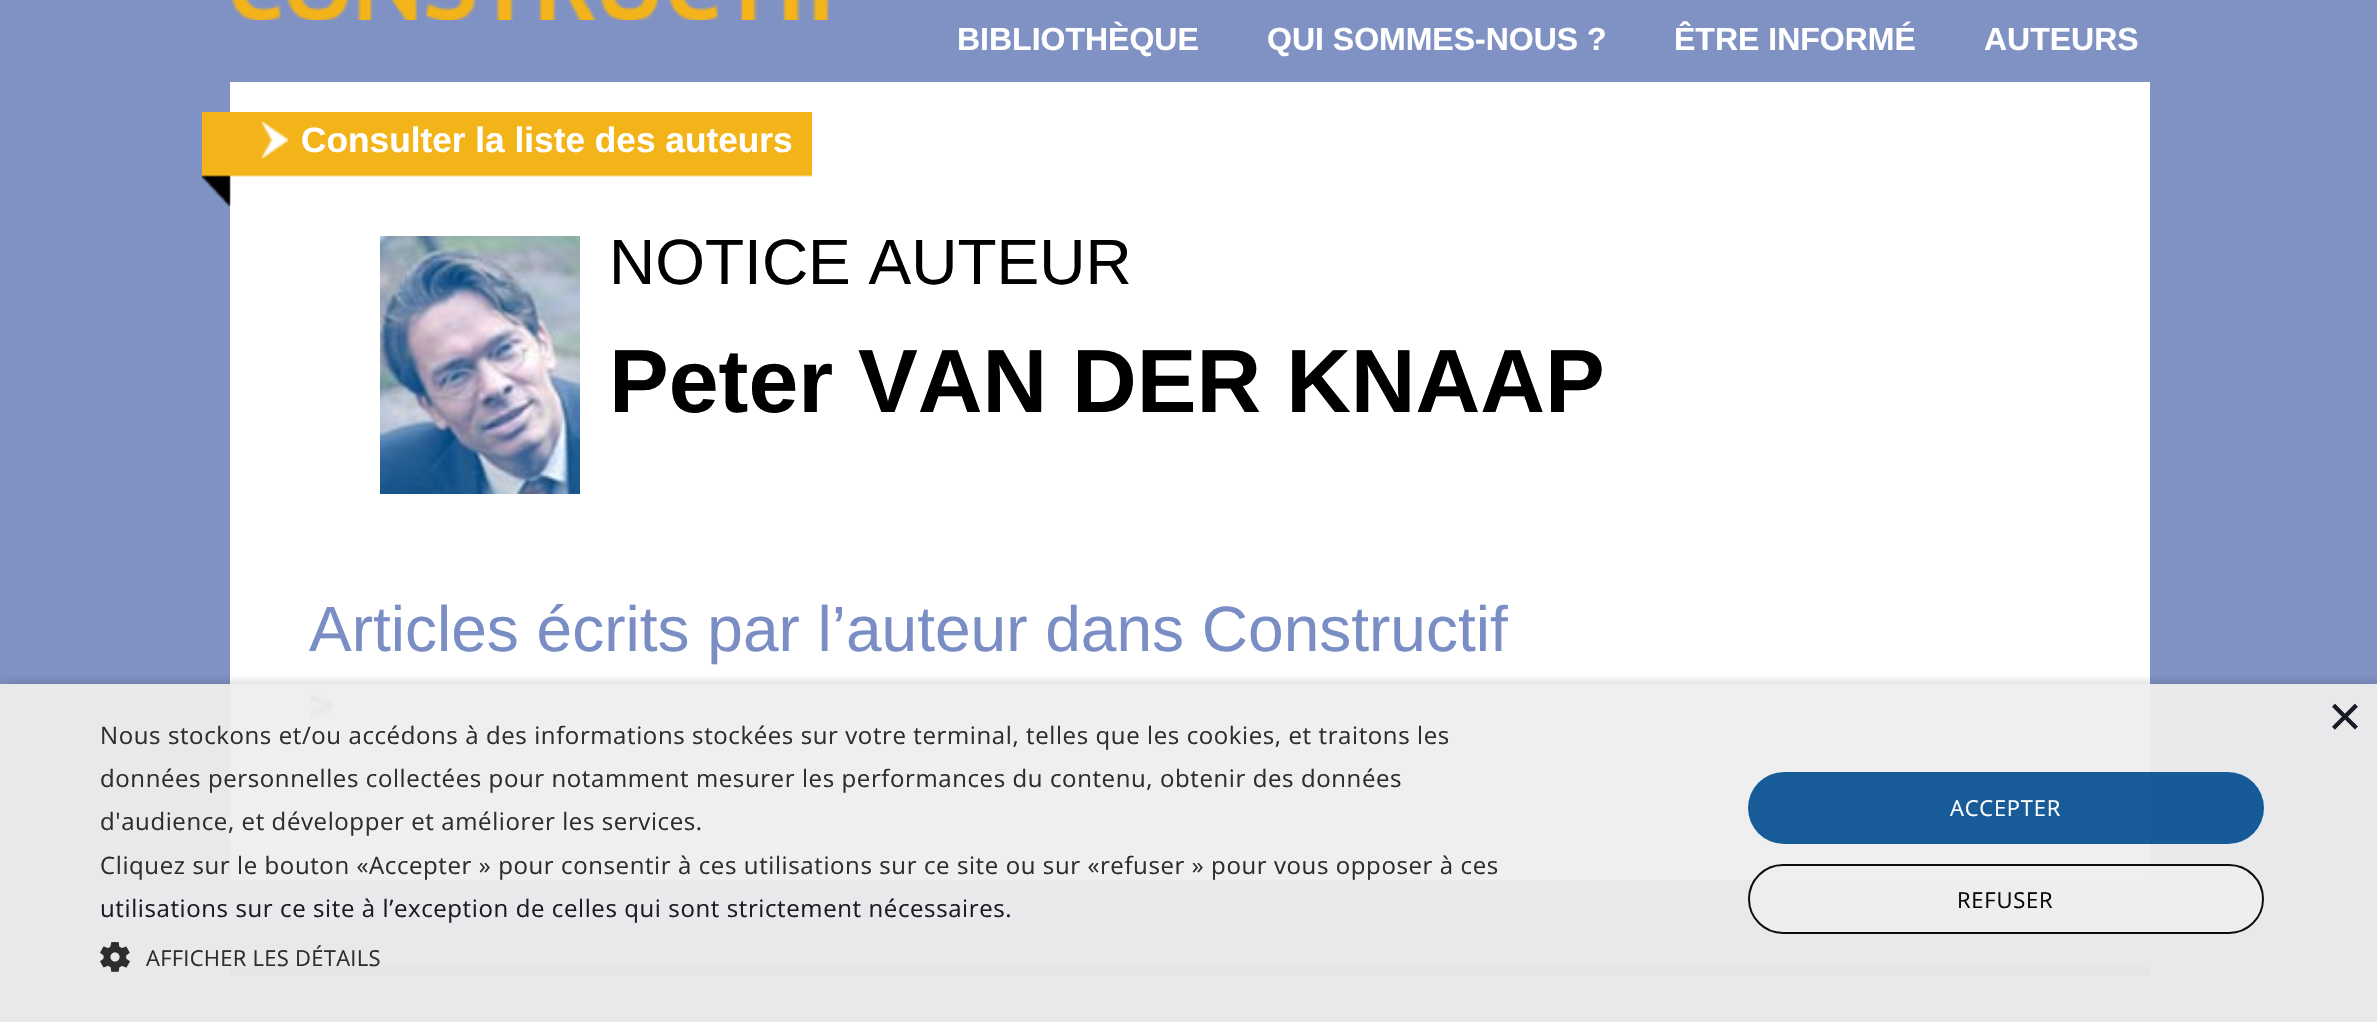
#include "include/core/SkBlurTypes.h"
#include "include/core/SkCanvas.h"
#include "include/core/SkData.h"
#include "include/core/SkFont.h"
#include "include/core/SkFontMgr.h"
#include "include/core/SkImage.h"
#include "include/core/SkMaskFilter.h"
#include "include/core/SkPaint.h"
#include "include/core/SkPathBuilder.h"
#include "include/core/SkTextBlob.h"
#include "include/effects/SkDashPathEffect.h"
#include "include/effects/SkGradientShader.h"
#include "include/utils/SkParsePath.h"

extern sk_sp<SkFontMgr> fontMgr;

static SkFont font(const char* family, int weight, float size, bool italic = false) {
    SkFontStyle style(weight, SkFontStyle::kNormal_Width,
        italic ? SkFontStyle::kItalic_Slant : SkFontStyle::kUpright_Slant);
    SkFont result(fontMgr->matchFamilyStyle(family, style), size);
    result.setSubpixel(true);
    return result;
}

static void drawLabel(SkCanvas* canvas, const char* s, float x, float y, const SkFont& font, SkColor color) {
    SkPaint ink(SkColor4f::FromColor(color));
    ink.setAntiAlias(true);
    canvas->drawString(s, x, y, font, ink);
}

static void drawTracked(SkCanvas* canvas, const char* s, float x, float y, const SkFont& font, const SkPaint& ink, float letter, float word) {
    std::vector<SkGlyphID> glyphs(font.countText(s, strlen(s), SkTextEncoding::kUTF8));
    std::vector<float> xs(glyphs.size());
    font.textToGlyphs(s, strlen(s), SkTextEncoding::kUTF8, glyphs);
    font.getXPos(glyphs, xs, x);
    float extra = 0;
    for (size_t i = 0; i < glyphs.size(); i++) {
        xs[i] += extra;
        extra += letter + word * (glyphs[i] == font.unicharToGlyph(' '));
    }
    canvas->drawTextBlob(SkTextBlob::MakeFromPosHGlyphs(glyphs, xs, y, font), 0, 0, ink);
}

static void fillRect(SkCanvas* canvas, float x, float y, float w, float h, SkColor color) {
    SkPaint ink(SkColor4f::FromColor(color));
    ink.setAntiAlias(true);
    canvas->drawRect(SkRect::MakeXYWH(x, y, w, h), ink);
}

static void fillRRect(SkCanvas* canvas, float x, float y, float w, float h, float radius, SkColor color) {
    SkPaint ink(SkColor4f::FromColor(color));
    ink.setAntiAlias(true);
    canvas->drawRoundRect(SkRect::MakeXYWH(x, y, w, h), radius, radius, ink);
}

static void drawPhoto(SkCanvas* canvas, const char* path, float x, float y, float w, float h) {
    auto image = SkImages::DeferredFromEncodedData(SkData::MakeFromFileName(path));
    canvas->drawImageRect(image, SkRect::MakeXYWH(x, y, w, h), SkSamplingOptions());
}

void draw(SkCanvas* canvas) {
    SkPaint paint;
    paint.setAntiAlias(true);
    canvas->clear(0xFF8092C4);
    fillRect(canvas, 0, 684, 2377, 338, 0xFFE9E9EC);
    drawPhoto(canvas, "assets/img1.png", 230, 0, 599, 20);
    SkFont font1 = font("Liberation Sans", 700, 32);
    drawLabel(canvas, "BIBLIOTHÈQUE", 957, 50, font1, 0xFFFFFFFF);
    drawLabel(canvas, "QUI SOMMES-NOUS ?", 1267, 50, font1, 0xFFFFFFFF);
    drawLabel(canvas, "ÊTRE INFORMÉ", 1674, 50, font1, 0xFFFFFFFF);
    drawLabel(canvas, "AUTEURS", 1984, 50, font1, 0xFFFFFFFF);
    fillRect(canvas, 230, 82, 1920, 602, 0xFFFFFFFF);
    fillRect(canvas, 230, 684, 1920, 196, 0xFFEFEFEF);
    drawPhoto(canvas, "assets/img2.png", 202, 112, 610, 94);
    drawPhoto(canvas, "assets/img3.png", 262, 122, 26, 36);
    SkFont font2 = font("Liberation Sans", 700, 35.25f);
    drawLabel(canvas, "Consulter la liste des auteurs", 301, 152, font2, 0xFFFFFFFF);
    drawPhoto(canvas, "assets/img4.png", 380, 236, 200, 258);
    SkFont font3 = font("Liberation Sans", 400, 64);
    drawLabel(canvas, "NOTICE AUTEUR", 609, 284, font3, 0xFF000000);
    SkFont font4 = font("Liberation Sans", 700, 89.6f);
    drawLabel(canvas, "Peter VAN DER KNAAP", 609, 412, font4, 0xFF000000);
    drawLabel(canvas, "Articles écrits par l’auteur dans Constructif", 309, 651, font3, 0xFF7A8EC5);
    drawPhoto(canvas, "assets/img5.png", 310, 694, 22, 24);
    fillRect(canvas, 230, 966, 1920, 10, 0xFFE5E6E7);
    canvas->save();
    canvas->clipRect(SkRect::MakeXYWH(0, 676, 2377, 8));
    paint.setColor(0x54000000);
    paint.setMaskFilter(SkMaskFilter::MakeBlur(kNormal_SkBlurStyle, 8));
    canvas->drawRect(SkRect::MakeXYWH(2, 688, 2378, 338), paint);
    paint.setMaskFilter(nullptr);
    canvas->restore();
    SkFont font5 = font("Liberation Sans", 400, 58);
    drawLabel(canvas, "×", 2328, 736, font5, 0xFF191C26);
    SkFont font6 = font("Open Sans", 400, 24);
    paint.setColor(0xFF2E2E2E);
    drawTracked(canvas, "Nous stockons et/ou accédons à des informations stockées sur votre terminal, telles que les cookies, et traitons les", 100, 744, font6, paint, 0.6f, 0);
    drawTracked(canvas, "données personnelles collectées pour notamment mesurer les performances du contenu, obtenir des données", 100, 787, font6, paint, 0.6f, 0);
    drawTracked(canvas, "d'audience, et développer et améliorer les services.", 100, 830, font6, paint, 0.6f, 0);
    drawTracked(canvas, "Cliquez sur le bouton «Accepter » pour consentir à ces utilisations sur ce site ou sur «refuser » pour vous opposer à ces", 100, 874, font6, paint, 0.6f, 0);
    paint.setColor(0xFF191C26);
    drawTracked(canvas, "utilisations sur ce site à l’exception de celles qui sont strictement nécessaires.", 100, 917, font6, paint, 0.6f, 0);
    drawPhoto(canvas, "assets/img6.png", 100, 942, 30, 30);
    SkFont font7 = font("Open Sans", 400, 22);
    paint.setColor(0xFF2E2E2E);
    drawTracked(canvas, "AFFICHER LES DÉTAILS", 146, 966, font7, paint, 0.25f, 0);
    fillRRect(canvas, 1748, 772, 516, 72, 36, 0xF20B5394);
    paint.setColor(0xFFFFFFFF);
    drawTracked(canvas, "ACCEPTER", 1950, 816, font7, paint, 0.75f, 0);
    fillRRect(canvas, 1748, 864, 516, 70, 35, 0xF2EEEEEE);
    paint.setStroke(true);
    paint.setStrokeWidth(2);
    paint.setColor(0xF2000000);
    canvas->drawRoundRect(SkRect::MakeXYWH(1749, 865, 514, 68), 34, 34, paint);
    paint.setStroke(false);
    paint.setColor(0xFF06070A);
    drawTracked(canvas, "REFUSER", 1957, 908, font7, paint, 0.75f, 0);
}
